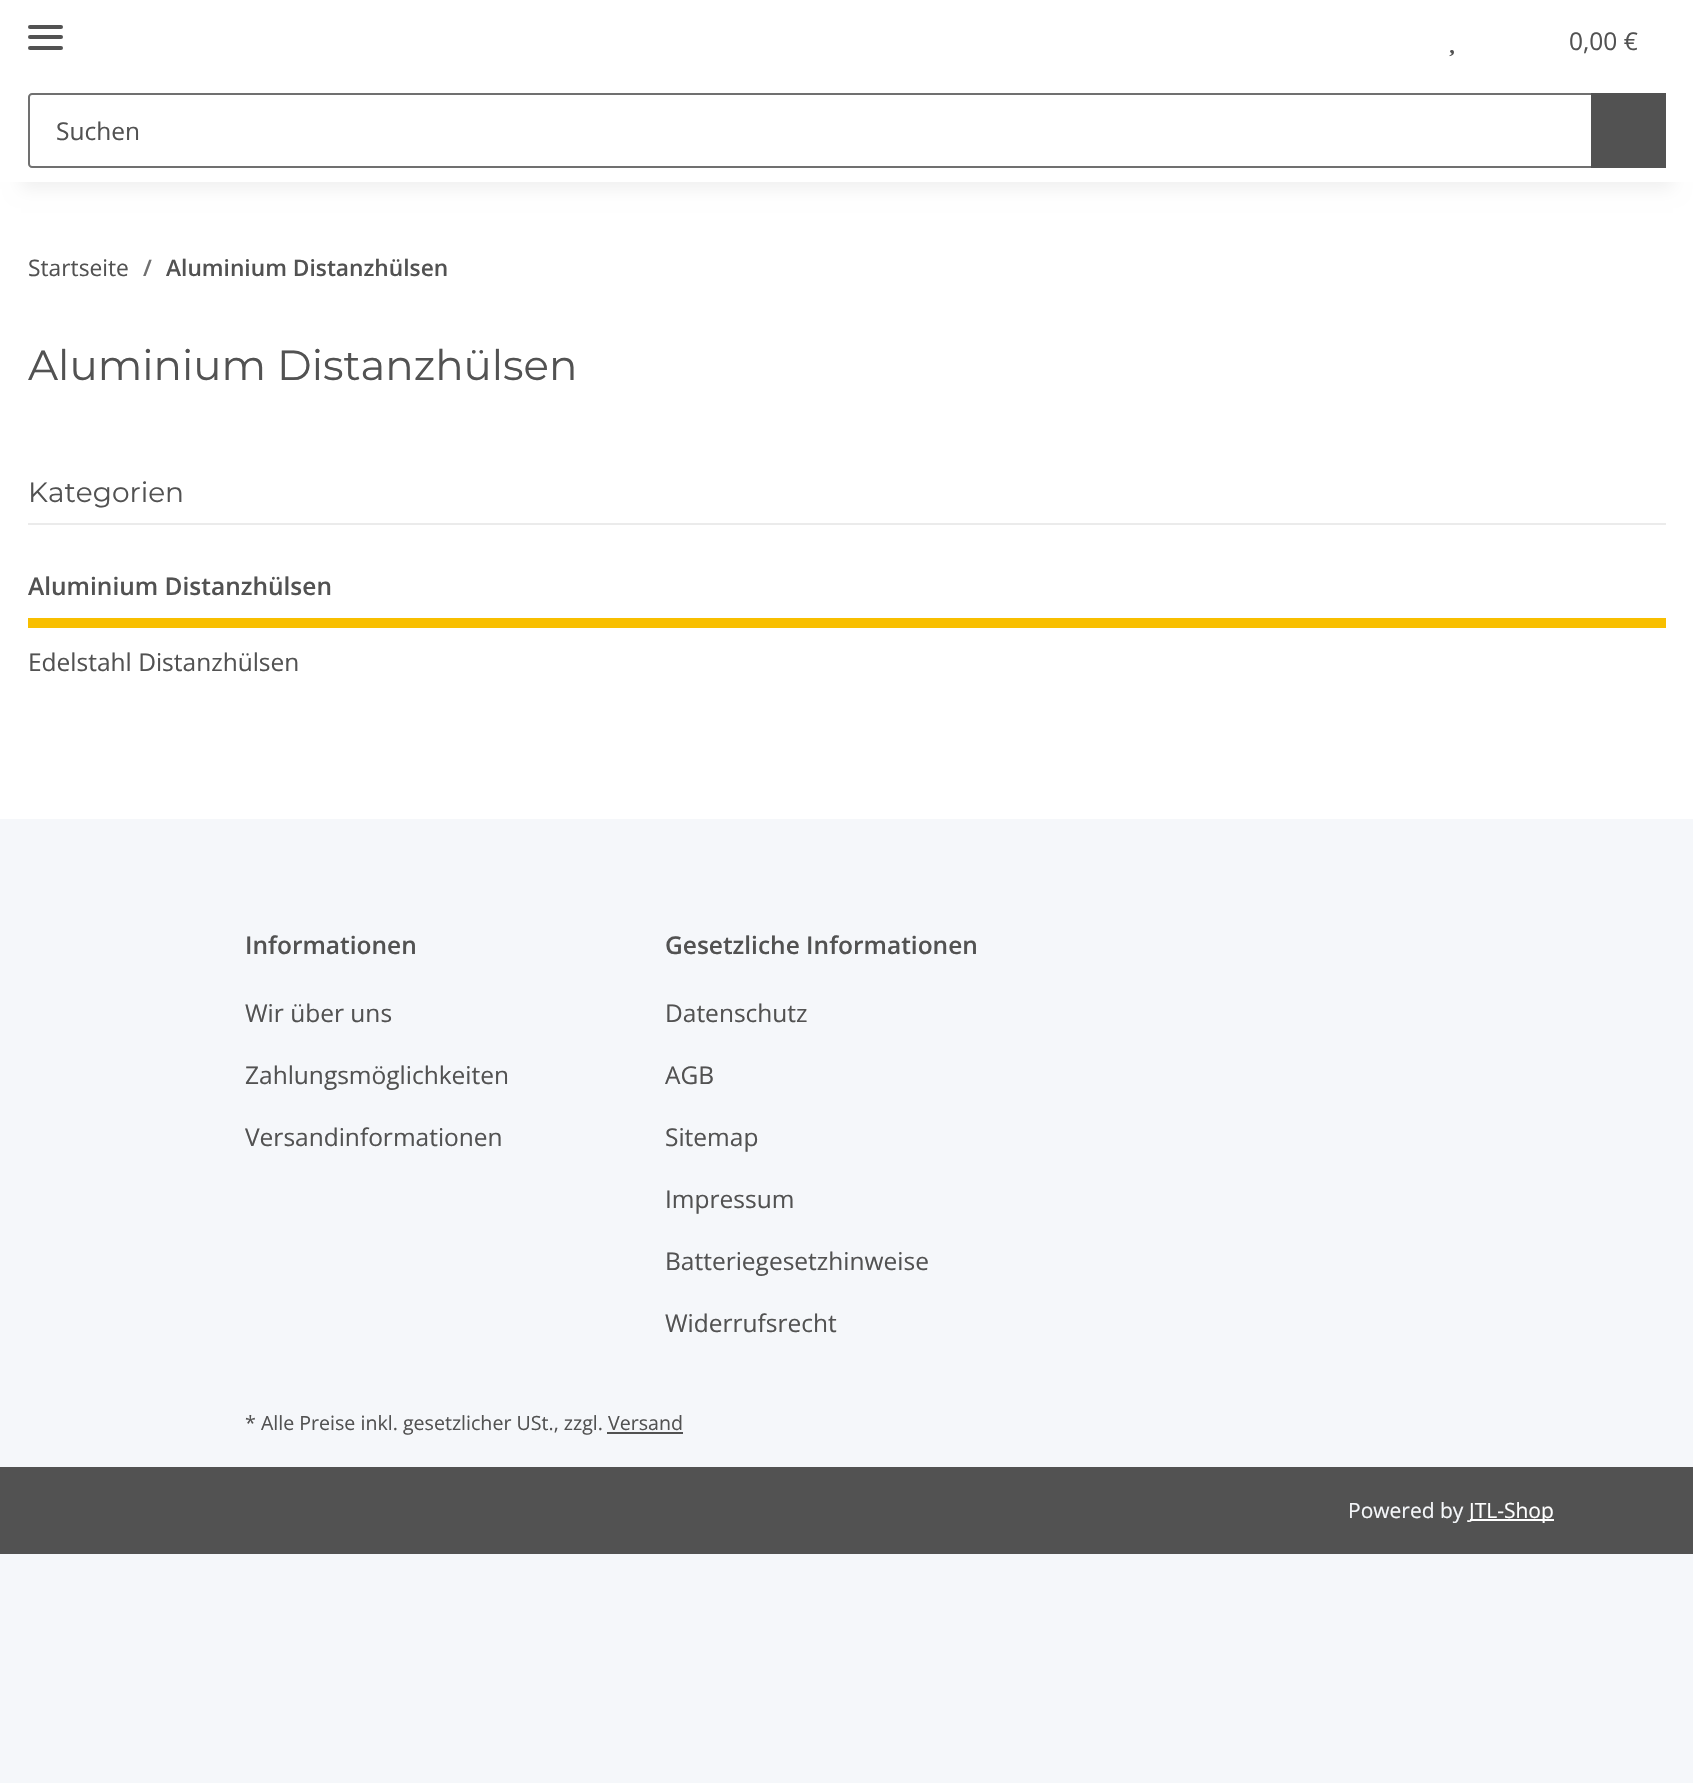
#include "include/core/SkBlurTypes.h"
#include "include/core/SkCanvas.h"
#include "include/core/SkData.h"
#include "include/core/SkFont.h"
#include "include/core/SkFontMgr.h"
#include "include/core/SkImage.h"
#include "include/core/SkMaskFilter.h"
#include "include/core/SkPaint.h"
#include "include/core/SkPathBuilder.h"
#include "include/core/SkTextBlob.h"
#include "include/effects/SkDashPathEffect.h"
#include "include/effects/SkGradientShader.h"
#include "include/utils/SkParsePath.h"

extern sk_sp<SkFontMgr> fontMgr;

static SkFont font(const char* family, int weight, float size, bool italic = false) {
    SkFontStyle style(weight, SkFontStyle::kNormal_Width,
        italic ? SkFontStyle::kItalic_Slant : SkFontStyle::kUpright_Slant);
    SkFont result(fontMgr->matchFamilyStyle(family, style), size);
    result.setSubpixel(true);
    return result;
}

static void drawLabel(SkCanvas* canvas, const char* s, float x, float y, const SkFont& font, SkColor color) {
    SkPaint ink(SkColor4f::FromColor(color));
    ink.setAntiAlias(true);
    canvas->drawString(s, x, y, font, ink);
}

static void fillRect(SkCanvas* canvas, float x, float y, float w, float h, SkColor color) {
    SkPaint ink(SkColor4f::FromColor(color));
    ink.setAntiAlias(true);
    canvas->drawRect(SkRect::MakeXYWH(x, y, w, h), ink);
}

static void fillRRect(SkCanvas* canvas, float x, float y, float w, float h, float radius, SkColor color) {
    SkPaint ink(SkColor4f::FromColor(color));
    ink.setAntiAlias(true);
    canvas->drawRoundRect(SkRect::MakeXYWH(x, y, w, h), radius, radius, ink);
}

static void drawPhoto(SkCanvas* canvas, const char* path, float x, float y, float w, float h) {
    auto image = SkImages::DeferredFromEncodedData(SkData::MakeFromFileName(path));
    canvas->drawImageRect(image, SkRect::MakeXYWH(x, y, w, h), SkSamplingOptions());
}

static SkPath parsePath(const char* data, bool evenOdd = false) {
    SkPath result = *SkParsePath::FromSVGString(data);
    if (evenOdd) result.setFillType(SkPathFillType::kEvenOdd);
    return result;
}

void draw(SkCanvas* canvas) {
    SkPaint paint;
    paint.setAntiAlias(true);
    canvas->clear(0xFFF5F7FA);
    fillRect(canvas, 0, 182, 1693, 637, 0xFFFFFFFF);
    paint.setColor(0x0F000000);
    paint.setMaskFilter(SkMaskFilter::MakeBlur(kNormal_SkBlurStyle, 8));
    canvas->drawRect(SkRect::MakeXYWH(21, 49, 1652, 140), paint);
    paint.setMaskFilter(nullptr);
    fillRect(canvas, 0, 0, 1693, 182, 0xFFFFFFFF);
    fillRRect(canvas, 28, 35, 35, 4, 2, 0xFF525252);
    fillRRect(canvas, 28, 25, 35, 4, 2, 0xFF525252);
    fillRRect(canvas, 28, 46, 35, 4, 2, 0xFF525252);
    drawPhoto(canvas, "assets/img1.png", 1449, 50, 5, 7);
    SkFont font1 = font("Open Sans", 400, 24.5f);
    drawLabel(canvas, "0,00 €", 1569, 50, font1, 0xFF525252);
    paint.setStroke(true);
    paint.setStrokeWidth(2);
    paint.setColor(0xFF707070);
    canvas->drawPath(parsePath("M32 94H1592V167H32C30.5 167 29 165.5 29 164V97C29 95.5 30.5 94 32 94Z"), paint);
    drawLabel(canvas, "Suchen", 56, 140, font1, 0xFF525252);
    fillRect(canvas, 1591, 93, 75, 75, 0xFF525252);
    SkFont font2 = font("Open Sans", 400, 22.75f);
    drawLabel(canvas, "Startseite", 28, 276, font2, 0xFF525252);
    SkFont font3 = font("Open Sans", 600, 22.75f);
    drawLabel(canvas, "/", 143, 276, font3, 0xFF707070);
    drawLabel(canvas, "Aluminium Distanzhülsen", 166, 276, font3, 0xFF525252);
    SkFont font4 = font("Montserrat", 400, 42);
    drawLabel(canvas, "Aluminium Distanzhülsen", 28, 380, font4, 0xFF525252);
    fillRect(canvas, 28, 523, 1638, 2, 0xFFEBEBEB);
    SkFont font5 = font("Montserrat", 400, 28);
    drawLabel(canvas, "Kategorien", 28, 502, font5, 0xFF525252);
    fillRect(canvas, 28, 618, 1638, 10, 0xFFF8BF00);
    SkFont font6 = font("Open Sans", 600, 24.5f);
    drawLabel(canvas, "Aluminium Distanzhülsen", 28, 595, font6, 0xFF525252);
    drawLabel(canvas, "Edelstahl Distanzhülsen", 28, 671, font1, 0xFF525252);
    drawLabel(canvas, "Informationen", 245, 954, font6, 0xFF525252);
    drawLabel(canvas, "Wir über uns", 245, 1022, font1, 0xFF525252);
    drawLabel(canvas, "Zahlungsmöglichkeiten", 245, 1084, font1, 0xFF525252);
    drawLabel(canvas, "Versandinformationen", 245, 1146, font1, 0xFF525252);
    drawLabel(canvas, "Gesetzliche Informationen", 665, 954, font6, 0xFF525252);
    drawLabel(canvas, "Datenschutz", 665, 1022, font1, 0xFF525252);
    drawLabel(canvas, "AGB", 665, 1084, font1, 0xFF525252);
    drawLabel(canvas, "Sitemap", 665, 1146, font1, 0xFF525252);
    drawLabel(canvas, "Impressum", 665, 1208, font1, 0xFF525252);
    drawLabel(canvas, "Batteriegesetzhinweise", 665, 1270, font1, 0xFF525252);
    drawLabel(canvas, "Widerrufsrecht", 665, 1332, font1, 0xFF525252);
    SkFont font7 = font("Open Sans", 400, 19.6f);
    drawLabel(canvas, "* Alle Preise inkl. gesetzlicher USt., zzgl.", 245, 1430, font7, 0xFF525252);
    drawLabel(canvas, "Versand", 608, 1430, font7, 0xFF525252);
    fillRect(canvas, 607, 1432, 76, 2, 0xFF525252);
    fillRect(canvas, 0, 1467, 1693, 87, 0xFF525252);
    SkFont font8 = font("Open Sans", 400, 21);
    drawLabel(canvas, "Powered by", 1348, 1518, font8, 0xFFF5F7FA);
    fillRect(canvas, 1470, 1519, 84, 2, 0xFFFFFFFF);
    drawLabel(canvas, "JTL-Shop", 1469, 1518, font8, 0xFFFFFFFF);
}
